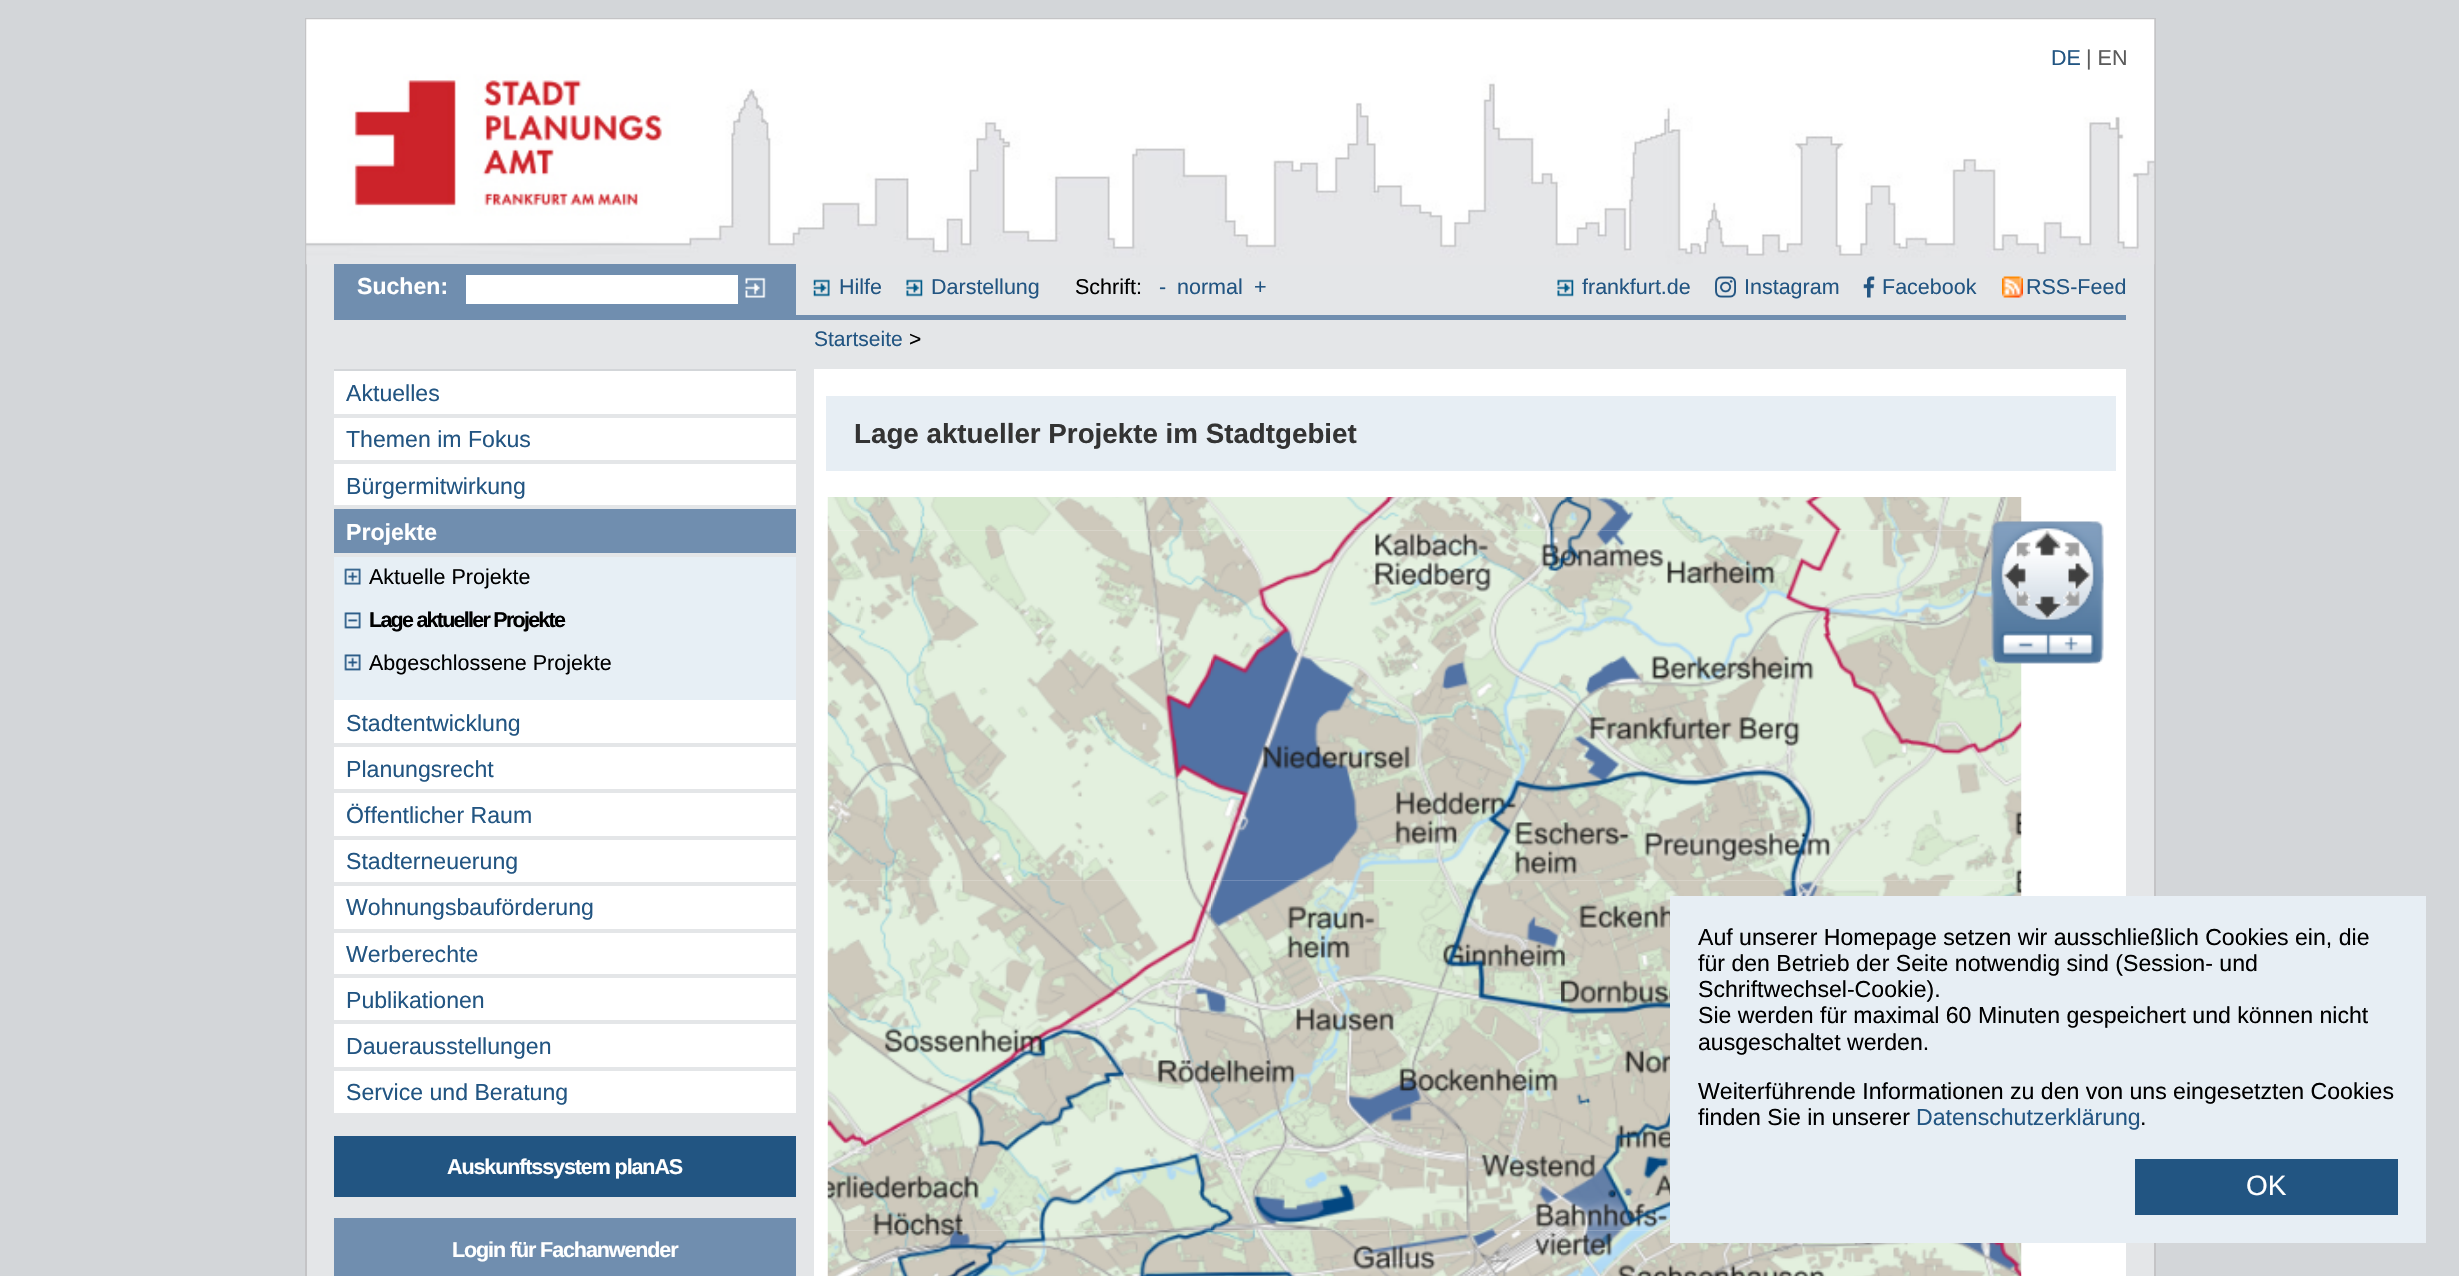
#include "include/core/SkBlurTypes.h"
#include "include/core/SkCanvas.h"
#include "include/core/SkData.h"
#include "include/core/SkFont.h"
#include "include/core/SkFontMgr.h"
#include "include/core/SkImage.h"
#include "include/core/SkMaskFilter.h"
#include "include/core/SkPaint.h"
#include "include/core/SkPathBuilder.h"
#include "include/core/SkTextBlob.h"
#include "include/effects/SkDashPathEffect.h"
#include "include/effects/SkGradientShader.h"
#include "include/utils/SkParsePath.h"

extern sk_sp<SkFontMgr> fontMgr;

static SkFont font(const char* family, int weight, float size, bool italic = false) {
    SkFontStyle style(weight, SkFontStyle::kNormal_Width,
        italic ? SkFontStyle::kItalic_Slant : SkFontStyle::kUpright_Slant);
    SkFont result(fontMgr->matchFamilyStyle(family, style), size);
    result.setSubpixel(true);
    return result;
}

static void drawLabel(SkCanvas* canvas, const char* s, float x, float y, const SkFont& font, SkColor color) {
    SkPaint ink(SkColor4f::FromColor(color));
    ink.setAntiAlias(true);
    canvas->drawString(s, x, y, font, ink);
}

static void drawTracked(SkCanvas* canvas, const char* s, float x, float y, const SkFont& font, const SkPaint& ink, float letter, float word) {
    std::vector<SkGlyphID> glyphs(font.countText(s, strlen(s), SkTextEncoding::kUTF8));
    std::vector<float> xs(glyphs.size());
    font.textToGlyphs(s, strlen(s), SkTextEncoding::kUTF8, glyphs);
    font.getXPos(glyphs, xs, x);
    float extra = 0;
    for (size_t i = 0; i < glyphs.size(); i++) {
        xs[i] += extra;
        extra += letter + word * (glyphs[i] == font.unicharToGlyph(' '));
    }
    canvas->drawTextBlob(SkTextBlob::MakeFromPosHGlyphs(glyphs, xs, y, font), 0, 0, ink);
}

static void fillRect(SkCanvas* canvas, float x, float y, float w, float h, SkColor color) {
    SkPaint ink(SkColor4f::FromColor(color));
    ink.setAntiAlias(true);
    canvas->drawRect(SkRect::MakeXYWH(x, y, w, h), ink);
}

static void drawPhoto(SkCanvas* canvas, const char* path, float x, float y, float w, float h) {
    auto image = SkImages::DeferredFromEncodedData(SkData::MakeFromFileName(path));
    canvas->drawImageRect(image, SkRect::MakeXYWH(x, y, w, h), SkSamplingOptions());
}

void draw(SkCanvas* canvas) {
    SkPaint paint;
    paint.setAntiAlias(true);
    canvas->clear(0xFFD3D6D9);
    fillRect(canvas, 307, 264, 1847, 1012, 0xFFE4E6E8);
    paint.setStroke(true);
    paint.setStrokeWidth(2);
    paint.setColor(0xFFC4C4C6);
    canvas->drawRect(SkRect::MakeXYWH(306, 19, 1849, 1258), paint);
    drawPhoto(canvas, "assets/img1.png", 306, 19, 1849, 246);
    SkFont font1 = font("Liberation Sans", 400, 21.5f);
    drawLabel(canvas, "DE", 2051, 65, font1, 0xFF225582);
    drawLabel(canvas, "| EN", 2086, 65, font1, 0xFF5B5B5B);
    fillRect(canvas, 334, 315, 1792, 5, 0xFF708EAF);
    fillRect(canvas, 334, 264, 462, 51, 0xFF708EAF);
    SkFont font2 = font("Liberation Sans", 700, 23.1f);
    drawLabel(canvas, "Suchen:", 357, 294, font2, 0xFFFFFFFF);
    fillRect(canvas, 466, 275, 272, 29, 0xFFFFFFFF);
    drawPhoto(canvas, "assets/img2.png", 745, 277, 21, 21);
    drawPhoto(canvas, "assets/img3.png", 813, 279, 17, 18);
    drawLabel(canvas, "Hilfe", 839, 294, font1, 0xFF225582);
    drawPhoto(canvas, "assets/img4.png", 906, 279, 17, 18);
    drawLabel(canvas, "Darstellung", 931, 294, font1, 0xFF225582);
    drawLabel(canvas, "Schrift:", 1075, 294, font1, 0xFF000000);
    drawLabel(canvas, "-", 1159, 294, font1, 0xFF225582);
    drawLabel(canvas, "normal", 1177, 294, font1, 0xFF225582);
    drawLabel(canvas, "+", 1254, 294, font1, 0xFF225582);
    drawPhoto(canvas, "assets/img5.png", 1557, 279, 17, 18);
    drawLabel(canvas, "frankfurt.de", 1582, 294, font1, 0xFF225582);
    drawPhoto(canvas, "assets/img6.png", 1715, 276, 21, 22);
    drawLabel(canvas, "Instagram", 1744, 294, font1, 0xFF225582);
    drawPhoto(canvas, "assets/img7.png", 1863, 276, 12, 22);
    drawLabel(canvas, "Facebook", 1882, 294, font1, 0xFF225582);
    drawPhoto(canvas, "assets/img8.png", 2002, 276, 21, 22);
    drawLabel(canvas, "RSS-Feed", 2026, 294, font1, 0xFF225582);
    SkFont font3 = font("Liberation Sans", 400, 21);
    drawLabel(canvas, "Startseite", 814, 346, font3, 0xFF225582);
    drawLabel(canvas, ">", 909, 346, font3, 0xFF000000);
    fillRect(canvas, 334, 369, 462, 2, 0xFFD3D6D9);
    fillRect(canvas, 334, 371, 462, 43, 0xFFFFFFFF);
    SkFont font4 = font("Liberation Sans", 400, 23.1f);
    drawLabel(canvas, "Aktuelles", 346, 401, font4, 0xFF225582);
    fillRect(canvas, 334, 418, 462, 42, 0xFFFFFFFF);
    drawLabel(canvas, "Themen im Fokus", 346, 447, font4, 0xFF225582);
    fillRect(canvas, 334, 464, 462, 41, 0xFFFFFFFF);
    drawLabel(canvas, "Bürgermitwirkung", 346, 494, font4, 0xFF225582);
    fillRect(canvas, 334, 509, 462, 44, 0xFF708EAF);
    drawLabel(canvas, "Projekte", 346, 540, font2, 0xFFFFFFFF);
    fillRect(canvas, 334, 557, 462, 143, 0xFFE7EFF5);
    drawPhoto(canvas, "assets/img9.png", 344, 568, 17, 17);
    drawLabel(canvas, "Aktuelle Projekte", 369, 584, font1, 0xFF000000);
    drawPhoto(canvas, "assets/img10.png", 344, 612, 17, 17);
    SkFont font5 = font("Liberation Sans", 700, 21.5f);
    paint.setStroke(false);
    paint.setColor(0xFF000000);
    drawTracked(canvas, "Lage aktueller Projekte", 369, 627, font5, paint, -1.75f, 0);
    drawPhoto(canvas, "assets/img11.png", 344, 654, 17, 17);
    drawLabel(canvas, "Abgeschlossene Projekte", 369, 670, font1, 0xFF000000);
    fillRect(canvas, 334, 700, 462, 43, 0xFFFFFFFF);
    drawLabel(canvas, "Stadtentwicklung", 346, 731, font4, 0xFF225582);
    fillRect(canvas, 334, 747, 462, 42, 0xFFFFFFFF);
    drawLabel(canvas, "Planungsrecht", 346, 777, font4, 0xFF225582);
    fillRect(canvas, 334, 793, 462, 43, 0xFFFFFFFF);
    drawLabel(canvas, "Öffentlicher Raum", 346, 823, font4, 0xFF225582);
    fillRect(canvas, 334, 840, 462, 42, 0xFFFFFFFF);
    drawLabel(canvas, "Stadterneuerung", 346, 869, font4, 0xFF225582);
    fillRect(canvas, 334, 886, 462, 43, 0xFFFFFFFF);
    drawLabel(canvas, "Wohnungsbauförderung", 346, 915, font4, 0xFF225582);
    fillRect(canvas, 334, 933, 462, 41, 0xFFFFFFFF);
    drawLabel(canvas, "Werberechte", 346, 962, font4, 0xFF225582);
    fillRect(canvas, 334, 978, 462, 42, 0xFFFFFFFF);
    drawLabel(canvas, "Publikationen", 346, 1008, font4, 0xFF225582);
    fillRect(canvas, 334, 1024, 462, 43, 0xFFFFFFFF);
    drawLabel(canvas, "Dauerausstellungen", 346, 1054, font4, 0xFF225582);
    fillRect(canvas, 334, 1071, 462, 42, 0xFFFFFFFF);
    drawLabel(canvas, "Service und Beratung", 346, 1100, font4, 0xFF225582);
    fillRect(canvas, 334, 1136, 462, 61, 0xFF225582);
    paint.setColor(0xFFFFFFFF);
    drawTracked(canvas, "Auskunftssystem planAS", 447, 1174, font5, paint, -1.1f, 0);
    fillRect(canvas, 334, 1218, 462, 58, 0xFF708EAF);
    drawTracked(canvas, "Login für Fachanwender", 452, 1257, font5, paint, -1.1f, 0);
    fillRect(canvas, 814, 369, 1312, 907, 0xFFFFFFFF);
    fillRect(canvas, 826, 396, 1290, 75, 0xFFE7EEF4);
    SkFont font6 = font("Liberation Sans", 700, 27.75f);
    drawLabel(canvas, "Lage aktueller Projekte im Stadtgebiet", 854, 443, font6, 0xFF333333);
    drawPhoto(canvas, "assets/img12.png", 827, 497, 34, 34);
    drawPhoto(canvas, "assets/img13.png", 861, 497, 350, 34);
    drawPhoto(canvas, "assets/img14.png", 1211, 497, 350, 34);
    drawPhoto(canvas, "assets/img15.png", 1561, 497, 350, 34);
    drawPhoto(canvas, "assets/img16.png", 1911, 497, 111, 34);
    drawPhoto(canvas, "assets/img17.png", 827, 530, 34, 351);
    drawPhoto(canvas, "assets/img18.png", 861, 530, 350, 351);
    drawPhoto(canvas, "assets/img19.png", 1211, 530, 350, 351);
    drawPhoto(canvas, "assets/img20.png", 1561, 530, 350, 351);
    drawPhoto(canvas, "assets/img21.png", 1911, 530, 111, 351);
    drawPhoto(canvas, "assets/img22.png", 827, 880, 34, 351);
    drawPhoto(canvas, "assets/img23.png", 861, 880, 350, 351);
    drawPhoto(canvas, "assets/img24.png", 1211, 880, 350, 351);
    drawPhoto(canvas, "assets/img25.png", 1561, 880, 350, 351);
    drawPhoto(canvas, "assets/img26.png", 1911, 880, 111, 16);
    drawPhoto(canvas, "assets/img27.png", 827, 1230, 34, 46);
    drawPhoto(canvas, "assets/img28.png", 861, 1230, 350, 46);
    drawPhoto(canvas, "assets/img29.png", 1211, 1230, 350, 46);
    drawPhoto(canvas, "assets/img30.png", 1561, 1230, 350, 46);
    drawPhoto(canvas, "assets/img31.png", 1911, 1243, 111, 33);
    drawPhoto(canvas, "assets/img32.png", 1991, 521, 113, 143);
    drawPhoto(canvas, "assets/img33.png", 2016, 542, 13, 15);
    drawPhoto(canvas, "assets/img34.png", 2028, 530, 33, 26);
    drawPhoto(canvas, "assets/img35.png", 2064, 542, 16, 15);
    drawPhoto(canvas, "assets/img36.png", 2003, 556, 24, 33);
    drawPhoto(canvas, "assets/img37.png", 2068, 556, 23, 33);
    drawPhoto(canvas, "assets/img38.png", 2016, 591, 13, 15);
    drawPhoto(canvas, "assets/img39.png", 2028, 594, 33, 25);
    drawPhoto(canvas, "assets/img40.png", 2063, 591, 17, 16);
    drawPhoto(canvas, "assets/img41.png", 1995, 631, 53, 31);
    drawPhoto(canvas, "assets/img42.png", 2047, 631, 53, 31);
    fillRect(canvas, 1670, 896, 756, 347, 0xFFE7EEF4);
    drawLabel(canvas, "Auf unserer Homepage setzen wir ausschließlich Cookies ein, die", 1698, 945, font4, 0xFF000000);
    drawLabel(canvas, "für den Betrieb der Seite notwendig sind (Session- und", 1698, 971, font4, 0xFF000000);
    drawLabel(canvas, "Schriftwechsel-Cookie).", 1698, 997, font4, 0xFF000000);
    drawLabel(canvas, "Sie werden für maximal 60 Minuten gespeichert und können nicht", 1698, 1023, font4, 0xFF000000);
    drawLabel(canvas, "ausgeschaltet werden.", 1698, 1050, font4, 0xFF000000);
    drawLabel(canvas, "Weiterführende Informationen zu den von uns eingesetzten Cookies", 1698, 1099, font4, 0xFF000000);
    drawLabel(canvas, "finden Sie in unserer", 1698, 1125, font4, 0xFF000000);
    drawLabel(canvas, "Datenschutzerklärung", 1916, 1125, font4, 0xFF225582);
    drawLabel(canvas, ".", 2140, 1125, font4, 0xFF000000);
    fillRect(canvas, 2135, 1159, 263, 56, 0xFF225582);
    SkFont font7 = font("Liberation Sans", 400, 28);
    drawLabel(canvas, "OK", 2246, 1195, font7, 0xFFFFFFFF);
}
